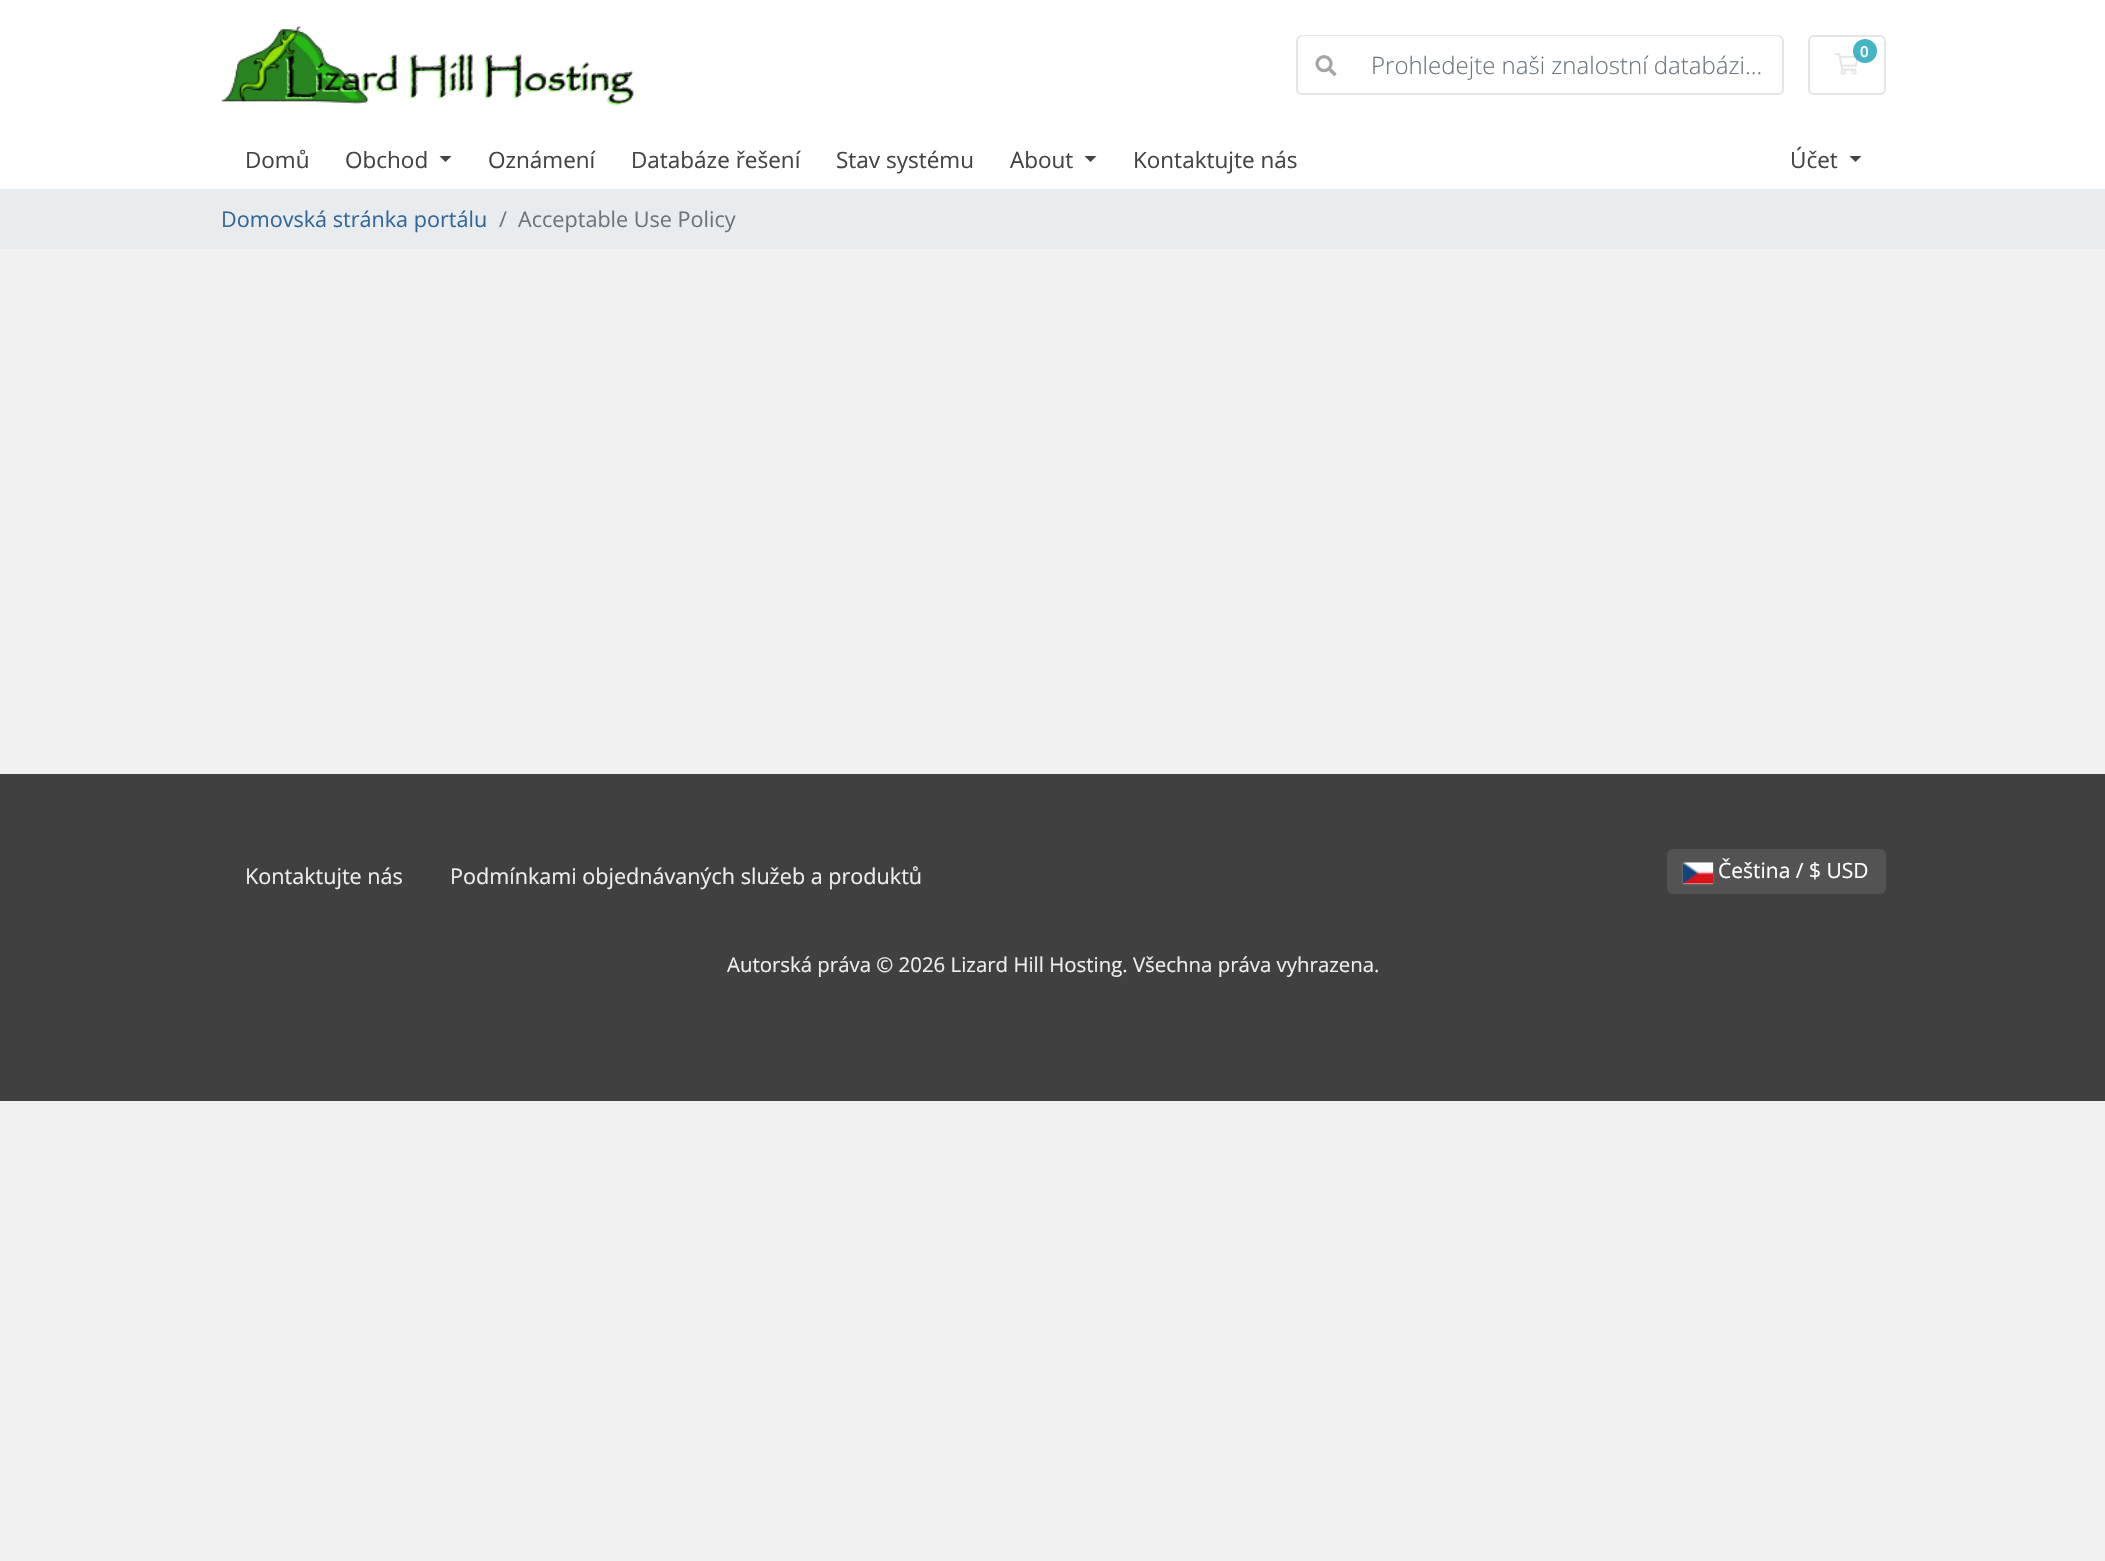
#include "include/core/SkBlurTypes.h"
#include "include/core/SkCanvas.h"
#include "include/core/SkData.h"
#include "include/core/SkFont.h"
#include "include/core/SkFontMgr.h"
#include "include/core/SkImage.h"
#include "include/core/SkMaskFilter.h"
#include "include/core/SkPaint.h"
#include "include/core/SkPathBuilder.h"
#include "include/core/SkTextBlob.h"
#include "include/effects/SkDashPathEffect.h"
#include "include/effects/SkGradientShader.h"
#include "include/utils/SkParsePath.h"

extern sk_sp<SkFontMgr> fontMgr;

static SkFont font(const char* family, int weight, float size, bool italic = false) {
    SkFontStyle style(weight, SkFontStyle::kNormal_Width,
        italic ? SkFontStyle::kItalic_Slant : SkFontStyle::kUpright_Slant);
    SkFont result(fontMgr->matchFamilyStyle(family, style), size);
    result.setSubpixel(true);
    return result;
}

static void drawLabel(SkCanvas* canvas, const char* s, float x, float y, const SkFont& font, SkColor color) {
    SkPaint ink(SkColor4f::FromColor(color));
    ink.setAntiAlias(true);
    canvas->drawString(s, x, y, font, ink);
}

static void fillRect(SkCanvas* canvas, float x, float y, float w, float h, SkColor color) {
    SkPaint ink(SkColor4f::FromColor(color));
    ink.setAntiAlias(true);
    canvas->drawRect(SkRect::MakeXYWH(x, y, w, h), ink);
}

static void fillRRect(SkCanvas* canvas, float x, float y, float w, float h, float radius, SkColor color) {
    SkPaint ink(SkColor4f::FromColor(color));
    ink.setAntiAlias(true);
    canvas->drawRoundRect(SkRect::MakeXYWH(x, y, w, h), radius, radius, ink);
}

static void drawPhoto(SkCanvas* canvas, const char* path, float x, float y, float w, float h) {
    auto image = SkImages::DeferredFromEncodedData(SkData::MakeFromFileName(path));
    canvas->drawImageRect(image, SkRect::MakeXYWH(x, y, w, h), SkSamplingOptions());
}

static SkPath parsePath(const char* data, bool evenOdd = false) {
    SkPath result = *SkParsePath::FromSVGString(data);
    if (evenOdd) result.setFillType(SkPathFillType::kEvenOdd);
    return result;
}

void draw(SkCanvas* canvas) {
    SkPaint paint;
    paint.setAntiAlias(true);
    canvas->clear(0xFFF1F1F1);
    fillRect(canvas, 0, 0, 2105, 189, 0xFFFFFFFF);
    drawPhoto(canvas, "assets/img1.png", 221, 26, 413, 80);
    paint.setStroke(true);
    paint.setStrokeWidth(2);
    paint.setColor(0xFFE5E5E5);
    canvas->drawRoundRect(SkRect::MakeXYWH(1809, 36, 76, 58), 5, 5, paint);
    drawPhoto(canvas, "assets/img2.png", 1834, 53, 25, 22);
    paint.setStroke(false);
    paint.setColor(0xCC17A2B8);
    canvas->drawCircle(1865, 51, 12, paint);
    SkFont font1 = font("Open Sans", 600, 15);
    drawLabel(canvas, "0", 1860, 57, font1, 0xFFFFFFFF);
    paint.setStroke(true);
    paint.setColor(0xFFE5E5E5);
    canvas->drawRoundRect(SkRect::MakeXYWH(1297, 36, 486, 58), 5, 5, paint);
    paint.setStroke(false);
    paint.setColor(0xFFFFFFFF);
    canvas->drawPath(parsePath("M1353 36H1776C1779.5 36 1782 38.5 1782 42V87C1782 90.5 1779.5 93 1776 93H1353Z"), paint);
    canvas->drawPath(parsePath("M1304 36H1355V93H1304C1300.5 93 1298 90.5 1298 87V42C1298 38.5 1300.5 36 1304 36Z"), paint);
    drawPhoto(canvas, "assets/img3.png", 1315, 55, 22, 22);
    SkFont font2 = font("Open Sans", 300, 24);
    drawLabel(canvas, "Prohledejte naši znalostní databázi...", 1371, 74, font2, 0xFF6C757D);
    SkFont font3 = font("Open Sans", 400, 22.5f);
    drawLabel(canvas, "Domů", 245, 168, font3, 0xFF444444);
    drawLabel(canvas, "Obchod", 345, 168, font3, 0xFF444444);
    paint.setColor(0xFF444444);
    canvas->drawPath(parsePath("M439.5 156H451.5L445.5 162Z"), paint);
    drawLabel(canvas, "Oznámení", 488, 168, font3, 0xFF444444);
    drawLabel(canvas, "Databáze řešení", 631, 168, font3, 0xFF444444);
    drawLabel(canvas, "Stav systému", 836, 168, font3, 0xFF444444);
    drawLabel(canvas, "About", 1010, 168, font3, 0xFF444444);
    canvas->drawPath(parsePath("M1084.5 156H1096.5L1090.5 162Z"), paint);
    drawLabel(canvas, "Kontaktujte nás", 1133, 168, font3, 0xFF444444);
    drawLabel(canvas, "Účet", 1790, 168, font3, 0xFF444444);
    canvas->drawPath(parsePath("M1849.5 156H1861.5L1855.5 162Z"), paint);
    fillRect(canvas, 0, 189, 2105, 60, 0xFFE9ECEF);
    SkFont font4 = font("Open Sans", 400, 21.6f);
    drawLabel(canvas, "Domovská stránka portálu", 221, 227, font4, 0xFF336699);
    drawLabel(canvas, "/", 499, 227, font4, 0xFF6C757D);
    drawLabel(canvas, "Acceptable Use Policy", 518, 227, font4, 0xFF6C757D);
    fillRect(canvas, 0, 774, 2105, 327, 0xFF404040);
    drawLabel(canvas, "Kontaktujte nás", 245, 884, font4, 0xFFEEEEEE);
    drawLabel(canvas, "Podmínkami objednávaných služeb a produktů", 450, 884, font4, 0xFFEEEEEE);
    fillRRect(canvas, 1667, 849, 219, 45, 6, 0xFF535353);
    paint.setColor(0xFF888888);
    paint.setMaskFilter(SkMaskFilter::MakeBlur(kNormal_SkBlurStyle, 1));
    canvas->drawRect(SkRect::MakeXYWH(1683, 863, 30, 21), paint);
    paint.setMaskFilter(nullptr);
    fillRect(canvas, 1683, 883, 30, 1, 0xFFDBDBDB);
    drawPhoto(canvas, "assets/img4.png", 1683, 862, 30, 22);
    SkFont font5 = font("Open Sans", 400, 21);
    drawLabel(canvas, "Čeština / $ USD", 1718, 878, font5, 0xFFFFFFFF);
    SkFont font6 = font("Open Sans", 400, 20.4f);
    drawLabel(canvas, "Autorská práva © 2026 Lizard Hill Hosting. Všechna práva vyhrazena.", 727, 972, font6, 0xFFEEEEEE);
}
